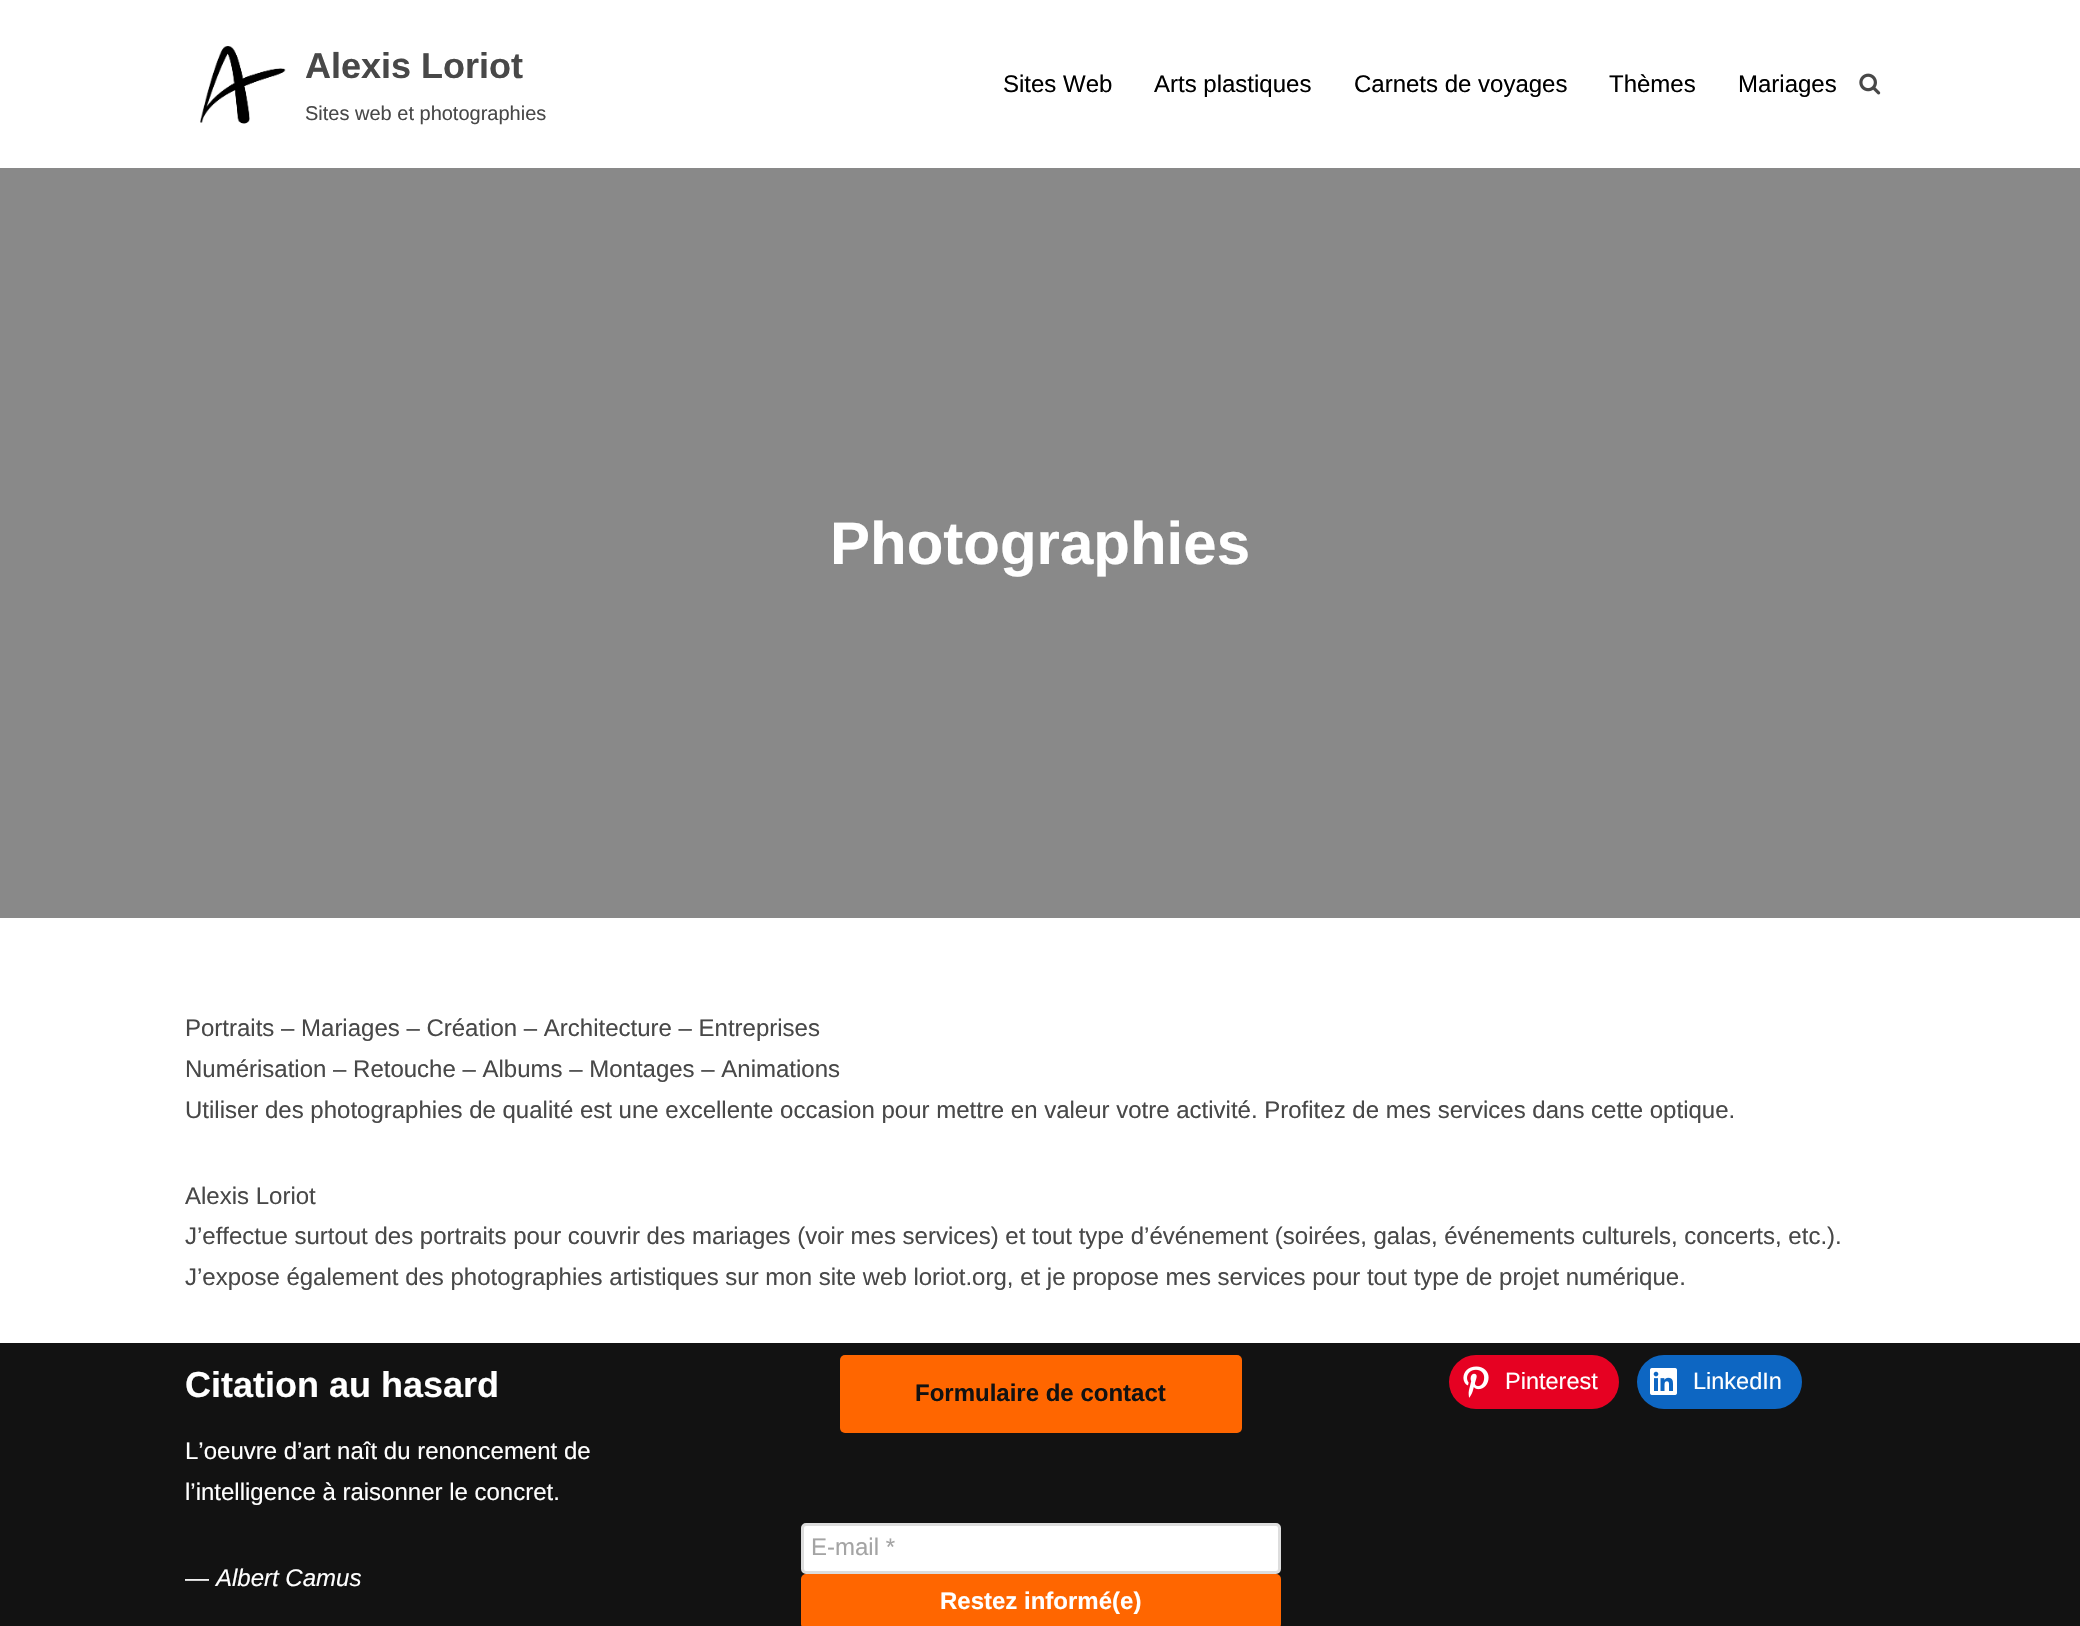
#include "include/core/SkBlurTypes.h"
#include "include/core/SkCanvas.h"
#include "include/core/SkData.h"
#include "include/core/SkFont.h"
#include "include/core/SkFontMgr.h"
#include "include/core/SkImage.h"
#include "include/core/SkMaskFilter.h"
#include "include/core/SkPaint.h"
#include "include/core/SkPathBuilder.h"
#include "include/core/SkTextBlob.h"
#include "include/effects/SkDashPathEffect.h"
#include "include/effects/SkGradientShader.h"
#include "include/utils/SkParsePath.h"

extern sk_sp<SkFontMgr> fontMgr;

static SkFont font(const char* family, int weight, float size, bool italic = false) {
    SkFontStyle style(weight, SkFontStyle::kNormal_Width,
        italic ? SkFontStyle::kItalic_Slant : SkFontStyle::kUpright_Slant);
    SkFont result(fontMgr->matchFamilyStyle(family, style), size);
    result.setSubpixel(true);
    return result;
}

static void drawLabel(SkCanvas* canvas, const char* s, float x, float y, const SkFont& font, SkColor color) {
    SkPaint ink(SkColor4f::FromColor(color));
    ink.setAntiAlias(true);
    canvas->drawString(s, x, y, font, ink);
}

static void fillRect(SkCanvas* canvas, float x, float y, float w, float h, SkColor color) {
    SkPaint ink(SkColor4f::FromColor(color));
    ink.setAntiAlias(true);
    canvas->drawRect(SkRect::MakeXYWH(x, y, w, h), ink);
}

static void fillRRect(SkCanvas* canvas, float x, float y, float w, float h, float radius, SkColor color) {
    SkPaint ink(SkColor4f::FromColor(color));
    ink.setAntiAlias(true);
    canvas->drawRoundRect(SkRect::MakeXYWH(x, y, w, h), radius, radius, ink);
}

static void drawPhoto(SkCanvas* canvas, const char* path, float x, float y, float w, float h) {
    auto image = SkImages::DeferredFromEncodedData(SkData::MakeFromFileName(path));
    canvas->drawImageRect(image, SkRect::MakeXYWH(x, y, w, h), SkSamplingOptions());
}

void draw(SkCanvas* canvas) {
    SkPaint paint;
    paint.setAntiAlias(true);
    canvas->clear(0xFFFFFFFF);
    fillRect(canvas, 0, 168, 2080, 750, 0xFF898989);
    drawPhoto(canvas, "assets/img1.png", 200, 46, 86, 78);
    SkFont font1 = font("Liberation Sans", 700, 36);
    drawLabel(canvas, "Alexis Loriot", 305, 78, font1, 0xFF484848);
    SkFont font2 = font("Liberation Sans", 400, 20);
    drawLabel(canvas, "Sites web et photographies", 305, 120, font2, 0xFF484848);
    SkFont font3 = font("Liberation Sans", 400, 24);
    drawLabel(canvas, "Sites Web", 1003, 92, font3, 0xFF000000);
    drawLabel(canvas, "Arts plastiques", 1154, 92, font3, 0xFF000000);
    drawLabel(canvas, "Carnets de voyages", 1354, 92, font3, 0xFF000000);
    drawLabel(canvas, "Thèmes", 1609, 92, font3, 0xFF000000);
    drawLabel(canvas, "Mariages", 1738, 92, font3, 0xFF000000);
    drawPhoto(canvas, "assets/img2.png", 1859, 73, 22, 22);
    SkFont font4 = font("Liberation Sans", 700, 60);
    drawLabel(canvas, "Photographies", 830, 564, font4, 0xFFFFFFFF);
    drawLabel(canvas, "Portraits – Mariages – Création – Architecture – Entreprises", 185, 1036, font3, 0xFF484848);
    drawLabel(canvas, "Numérisation – Retouche – Albums – Montages – Animations", 185, 1077, font3, 0xFF484848);
    drawLabel(canvas, "Utiliser des photographies de qualité est une excellente occasion pour mettre en valeur votre activité. Profitez de mes services dans cette optique.", 185, 1118, font3, 0xFF484848);
    drawLabel(canvas, "Alexis Loriot", 185, 1204, font3, 0xFF484848);
    drawLabel(canvas, "J’effectue surtout des portraits pour couvrir des mariages (voir mes services) et tout type d’événement (soirées, galas, événements culturels, concerts, etc.).", 185, 1244, font3, 0xFF484848);
    drawLabel(canvas, "J’expose également des photographies artistiques sur mon site web loriot.org, et je propose mes services pour tout type de projet numérique.", 185, 1285, font3, 0xFF484848);
    fillRect(canvas, 0, 1343, 2080, 283, 0xFF121212);
    drawLabel(canvas, "Citation au hasard", 185, 1397, font1, 0xFFFFFFFF);
    drawLabel(canvas, "L’oeuvre d’art naît du renoncement de", 185, 1459, font3, 0xFFFFFFFF);
    drawLabel(canvas, "l’intelligence à raisonner le concret.", 185, 1500, font3, 0xFFFFFFFF);
    drawLabel(canvas, "—", 185, 1586, font3, 0xFFFFFFFF);
    SkFont font5 = font("Liberation Sans", 400, 24, true);
    drawLabel(canvas, "Albert Camus", 216, 1586, font5, 0xFFFFFFFF);
    fillRRect(canvas, 1449, 1355, 170, 54, 27, 0xFFE60122);
    drawPhoto(canvas, "assets/img3.png", 1463, 1366, 26, 32);
    SkFont font6 = font("Liberation Sans", 400, 23.5f);
    drawLabel(canvas, "Pinterest", 1505, 1389, font6, 0xFFFFFFFF);
    fillRRect(canvas, 1637, 1355, 165, 54, 27, 0xFF0D66C2);
    drawPhoto(canvas, "assets/img4.png", 1650, 1368, 27, 27);
    drawLabel(canvas, "LinkedIn", 1693, 1389, font6, 0xFFFFFFFF);
    fillRRect(canvas, 840, 1355, 402, 78, 5, 0xFFFF6600);
    SkFont font7 = font("Liberation Sans", 700, 24);
    drawLabel(canvas, "Formulaire de contact", 915, 1401, font7, 0xFF121212);
    paint.setColor(0xFFFFFFFF);
    canvas->drawRoundRect(SkRect::MakeXYWH(802.5f, 1524.5f, 477, 48), 3.5f, 3.5f, paint);
    paint.setStroke(true);
    paint.setStrokeWidth(3);
    paint.setColor(0xFFDDDDDD);
    canvas->drawRoundRect(SkRect::MakeXYWH(802.5f, 1524.5f, 477, 48), 3.5f, 3.5f, paint);
    drawLabel(canvas, "E-mail *", 811, 1555, font3, 0xFFA4A4A4);
    fillRRect(canvas, 801, 1574, 480, 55, 5, 0xFFFF6600);
    drawLabel(canvas, "Restez informé(e)", 940, 1609, font7, 0xFFFFFFFF);
}
